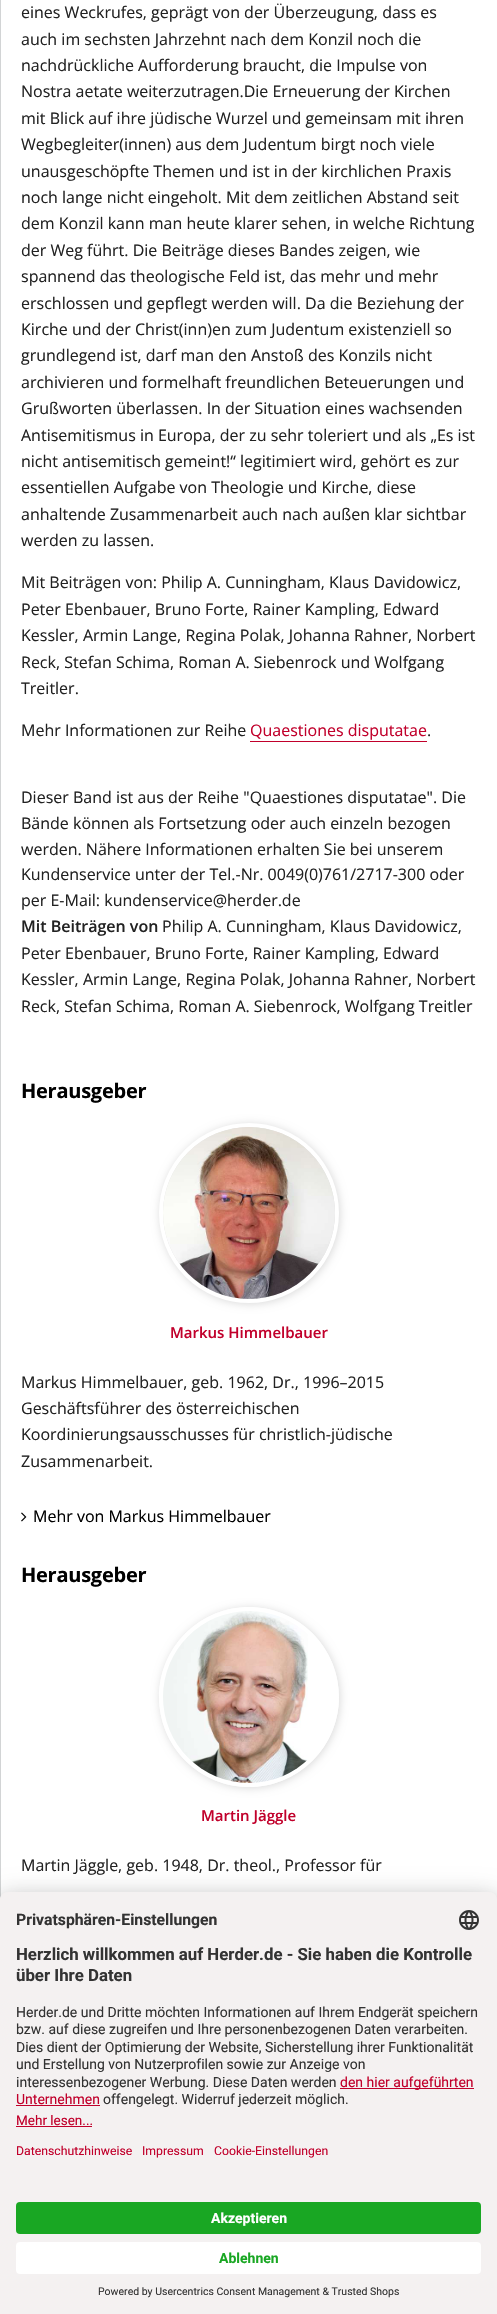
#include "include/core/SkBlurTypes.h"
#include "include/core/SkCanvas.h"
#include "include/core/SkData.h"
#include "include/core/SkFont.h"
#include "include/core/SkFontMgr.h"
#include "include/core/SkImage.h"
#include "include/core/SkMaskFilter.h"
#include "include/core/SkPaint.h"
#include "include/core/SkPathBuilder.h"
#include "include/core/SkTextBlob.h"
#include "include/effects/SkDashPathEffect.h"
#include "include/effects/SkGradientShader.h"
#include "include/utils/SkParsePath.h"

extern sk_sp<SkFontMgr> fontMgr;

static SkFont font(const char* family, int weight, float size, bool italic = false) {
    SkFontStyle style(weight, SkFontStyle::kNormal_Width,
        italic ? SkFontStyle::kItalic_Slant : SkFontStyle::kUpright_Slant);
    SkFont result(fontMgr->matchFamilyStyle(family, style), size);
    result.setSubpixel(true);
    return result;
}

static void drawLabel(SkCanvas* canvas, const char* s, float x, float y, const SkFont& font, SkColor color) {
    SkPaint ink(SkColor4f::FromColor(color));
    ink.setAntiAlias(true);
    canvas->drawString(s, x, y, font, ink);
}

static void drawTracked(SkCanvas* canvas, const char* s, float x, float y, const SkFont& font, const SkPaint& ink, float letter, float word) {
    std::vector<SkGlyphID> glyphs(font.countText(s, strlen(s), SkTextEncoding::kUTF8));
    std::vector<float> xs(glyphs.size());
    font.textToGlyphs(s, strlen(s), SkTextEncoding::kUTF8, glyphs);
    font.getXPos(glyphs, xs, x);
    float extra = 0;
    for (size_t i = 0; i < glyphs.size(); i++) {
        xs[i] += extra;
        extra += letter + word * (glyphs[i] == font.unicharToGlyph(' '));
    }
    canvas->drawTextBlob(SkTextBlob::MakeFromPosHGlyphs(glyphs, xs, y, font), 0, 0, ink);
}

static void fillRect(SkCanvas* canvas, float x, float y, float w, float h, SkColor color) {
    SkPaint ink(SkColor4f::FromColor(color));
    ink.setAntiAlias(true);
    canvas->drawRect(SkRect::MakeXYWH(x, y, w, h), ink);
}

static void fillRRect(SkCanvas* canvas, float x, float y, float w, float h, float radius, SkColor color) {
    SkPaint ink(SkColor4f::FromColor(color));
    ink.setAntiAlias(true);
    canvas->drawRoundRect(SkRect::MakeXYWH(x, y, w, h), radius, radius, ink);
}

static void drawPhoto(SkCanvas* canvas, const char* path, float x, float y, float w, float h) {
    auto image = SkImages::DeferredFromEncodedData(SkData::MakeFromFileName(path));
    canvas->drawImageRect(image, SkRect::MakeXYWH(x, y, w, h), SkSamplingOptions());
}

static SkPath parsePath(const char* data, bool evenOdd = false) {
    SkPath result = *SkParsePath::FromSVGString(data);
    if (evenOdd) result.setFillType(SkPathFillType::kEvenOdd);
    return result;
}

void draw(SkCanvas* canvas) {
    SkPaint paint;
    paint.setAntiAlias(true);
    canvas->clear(0xFFFFFFFF);
    fillRect(canvas, 0, 0, 1, 1900, 0xFFD2D4D5);
    SkFont font1 = font("Open Sans", 400, 16);
    drawLabel(canvas, "eines Weckrufes, geprägt von der Überzeugung, dass es", 21, 18, font1, 0xFF222222);
    drawLabel(canvas, "auch im sechsten Jahrzehnt nach dem Konzil noch die", 21, 45, font1, 0xFF222222);
    drawLabel(canvas, "nachdrückliche Aufforderung braucht, die Impulse von", 21, 71, font1, 0xFF222222);
    drawLabel(canvas, "Nostra aetate weiterzutragen.Die Erneuerung der Kirchen", 21, 97, font1, 0xFF222222);
    drawLabel(canvas, "mit Blick auf ihre jüdische Wurzel und gemeinsam mit ihren", 21, 124, font1, 0xFF222222);
    drawLabel(canvas, "Wegbegleiter(innen) aus dem Judentum birgt noch viele", 21, 150, font1, 0xFF222222);
    drawLabel(canvas, "unausgeschöpfte Themen und ist in der kirchlichen Praxis", 21, 177, font1, 0xFF222222);
    drawLabel(canvas, "noch lange nicht eingeholt. Mit dem zeitlichen Abstand seit", 21, 203, font1, 0xFF222222);
    drawLabel(canvas, "dem Konzil kann man heute klarer sehen, in welche Richtung", 21, 229, font1, 0xFF222222);
    drawLabel(canvas, "der Weg führt. Die Beiträge dieses Bandes zeigen, wie", 21, 256, font1, 0xFF222222);
    drawLabel(canvas, "spannend das theologische Feld ist, das mehr und mehr", 21, 282, font1, 0xFF222222);
    drawLabel(canvas, "erschlossen und gepflegt werden will. Da die Beziehung der", 21, 309, font1, 0xFF222222);
    drawLabel(canvas, "Kirche und der Christ(inn)en zum Judentum existenziell so", 21, 335, font1, 0xFF222222);
    drawLabel(canvas, "grundlegend ist, darf man den Anstoß des Konzils nicht", 21, 361, font1, 0xFF222222);
    drawLabel(canvas, "archivieren und formelhaft freundlichen Beteuerungen und", 21, 388, font1, 0xFF222222);
    drawLabel(canvas, "Grußworten überlassen. In der Situation eines wachsenden", 21, 414, font1, 0xFF222222);
    drawLabel(canvas, "Antisemitismus in Europa, der zu sehr toleriert und als „Es ist", 21, 441, font1, 0xFF222222);
    drawLabel(canvas, "nicht antisemitisch gemeint!“ legitimiert wird, gehört es zur", 21, 467, font1, 0xFF222222);
    drawLabel(canvas, "essentiellen Aufgabe von Theologie und Kirche, diese", 21, 493, font1, 0xFF222222);
    drawLabel(canvas, "anhaltende Zusammenarbeit auch nach außen klar sichtbar", 21, 520, font1, 0xFF222222);
    drawLabel(canvas, "werden zu lassen.", 21, 546, font1, 0xFF222222);
    drawLabel(canvas, "Mit Beiträgen von: Philip A. Cunningham, Klaus Davidowicz,", 21, 588, font1, 0xFF222222);
    drawLabel(canvas, "Peter Ebenbauer, Bruno Forte, Rainer Kampling, Edward", 21, 615, font1, 0xFF222222);
    drawLabel(canvas, "Kessler, Armin Lange, Regina Polak, Johanna Rahner, Norbert", 21, 641, font1, 0xFF222222);
    drawLabel(canvas, "Reck, Stefan Schima, Roman A. Siebenrock und Wolfgang", 21, 668, font1, 0xFF222222);
    drawLabel(canvas, "Treitler.", 21, 694, font1, 0xFF222222);
    drawLabel(canvas, "Mehr Informationen zur Reihe", 21, 736, font1, 0xFF222222);
    drawLabel(canvas, "Quaestiones disputatae", 250, 736, font1, 0xFFC1002B);
    fillRect(canvas, 250, 741, 177, 1, 0xFFC1002B);
    drawLabel(canvas, ".", 427, 736, font1, 0xFF222222);
    drawLabel(canvas, "Dieser Band ist aus der Reihe \"Quaestiones disputatae\". Die", 21, 803, font1, 0xFF222222);
    drawLabel(canvas, "Bände können als Fortsetzung oder auch einzeln bezogen", 21, 829, font1, 0xFF222222);
    drawLabel(canvas, "werden. Nähere Informationen erhalten Sie bei unserem", 21, 855, font1, 0xFF222222);
    drawLabel(canvas, "Kundenservice unter der Tel.-Nr. 0049(0)761/2717-300 oder", 21, 880, font1, 0xFF222222);
    drawLabel(canvas, "per E-Mail: kundenservice@herder.de", 21, 906, font1, 0xFF222222);
    SkFont font2 = font("Open Sans", 600, 16);
    drawLabel(canvas, "Mit Beiträgen von", 21, 932, font2, 0xFF222222);
    drawLabel(canvas, "Philip A. Cunningham, Klaus Davidowicz,", 162, 932, font1, 0xFF222222);
    drawLabel(canvas, "Peter Ebenbauer, Bruno Forte, Rainer Kampling, Edward", 21, 959, font1, 0xFF222222);
    drawLabel(canvas, "Kessler, Armin Lange, Regina Polak, Johanna Rahner, Norbert", 21, 985, font1, 0xFF222222);
    drawLabel(canvas, "Reck, Stefan Schima, Roman A. Siebenrock, Wolfgang Treitler", 21, 1012, font1, 0xFF222222);
    SkFont font3 = font("Open Sans", 700, 20);
    paint.setColor(0xFF000000);
    drawTracked(canvas, "Herausgeber", 21, 1098, font3, paint, -0.25f, 0);
    paint.setColor(0x26000000);
    paint.setMaskFilter(SkMaskFilter::MakeBlur(kNormal_SkBlurStyle, 4));
    canvas->drawRoundRect(SkRect::MakeXYWH(160, 1124, 180, 180), 90, 90, paint);
    paint.setMaskFilter(nullptr);
    paint.setStroke(true);
    paint.setStrokeWidth(4);
    paint.setColor(0xFFFFFFFF);
    canvas->drawCircle(249, 1213, 88, paint);
    drawPhoto(canvas, "assets/img1.png", 163, 1127, 172, 172);
    SkFont font4 = font("Open Sans", 600, 15);
    drawLabel(canvas, "Markus Himmelbauer", 170, 1338, font4, 0xFFC1002B);
    drawLabel(canvas, "Markus Himmelbauer, geb. 1962, Dr., 1996–2015", 21, 1388, font1, 0xFF222222);
    drawLabel(canvas, "Geschäftsführer des österreichischen", 21, 1414, font1, 0xFF222222);
    drawLabel(canvas, "Koordinierungsausschusses für christlich-jüdische", 21, 1440, font1, 0xFF222222);
    drawLabel(canvas, "Zusammenarbeit.", 21, 1467, font1, 0xFF222222);
    drawPhoto(canvas, "assets/img2.png", 21, 1512, 6, 10);
    drawLabel(canvas, "Mehr von Markus Himmelbauer", 33, 1522, font1, 0xFF000000);
    paint.setStroke(false);
    paint.setColor(0xFF000000);
    drawTracked(canvas, "Herausgeber", 21, 1582, font3, paint, -0.25f, 0);
    canvas->save();
    canvas->clipPath(parsePath("M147 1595H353V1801H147ZM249 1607C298.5 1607 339 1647.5 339 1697C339 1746.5 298.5 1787 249 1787C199.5 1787 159 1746.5 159 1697C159 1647.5 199.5 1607 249 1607Z", true), true);
    paint.setColor(0x26000000);
    paint.setMaskFilter(SkMaskFilter::MakeBlur(kNormal_SkBlurStyle, 4));
    canvas->drawRoundRect(SkRect::MakeXYWH(160, 1608, 180, 180), 90, 90, paint);
    paint.setMaskFilter(nullptr);
    canvas->restore();
    paint.setStroke(true);
    paint.setColor(0xFFFFFFFF);
    canvas->drawCircle(249, 1697, 88, paint);
    drawPhoto(canvas, "assets/img3.png", 163, 1611, 145, 172);
    drawLabel(canvas, "Martin Jäggle", 201, 1821, font4, 0xFFC1002B);
    drawLabel(canvas, "Martin Jäggle, geb. 1948, Dr. theol., Professor für", 21, 1871, font1, 0xFF222222);
    paint.setStroke(false);
    paint.setColor(0x4D000000);
    paint.setMaskFilter(SkMaskFilter::MakeBlur(kNormal_SkBlurStyle, 14));
    canvas->drawRoundRect(SkRect::MakeXYWH(0, 1912, 497, 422), 8, 8, paint);
    paint.setMaskFilter(nullptr);
    paint.setColor(0x38000000);
    paint.setMaskFilter(SkMaskFilter::MakeBlur(kNormal_SkBlurStyle, 13));
    canvas->drawRoundRect(SkRect::MakeXYWH(0, 1897, 497, 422), 8, 8, paint);
    paint.setMaskFilter(nullptr);
    paint.setColor(0xFFF4F1F1);
    canvas->drawPath(parsePath("M8 1892H489C493.5 1892 497 1895.5 497 1900V2314H0V1900C0 1895.5 3.5 1892 8 1892Z"), paint);
    canvas->drawPath(parsePath("M8 1892H489C493.5 1892 497 1895.5 497 1900V2190H0V1900C0 1895.5 3.5 1892 8 1892Z"), paint);
    SkFont font5 = font("Roboto", 700, 15.75f);
    drawLabel(canvas, "Privatsphären-Einstellungen", 16, 1925, font5, 0xFF333333);
    drawPhoto(canvas, "assets/img4.png", 459, 1910, 20, 20);
    SkFont font6 = font("Roboto", 700, 16.8f);
    drawLabel(canvas, "Herzlich willkommen auf Herder.de - Sie haben die Kontrolle", 16, 1960, font6, 0xFF333333);
    drawLabel(canvas, "über Ihre Daten", 16, 1981, font6, 0xFF333333);
    SkFont font7 = font("Roboto", 400, 14);
    drawLabel(canvas, "Herder.de und Dritte möchten Informationen auf Ihrem Endgerät speichern", 16, 2017, font7, 0xFF333333);
    drawLabel(canvas, "bzw. auf diese zugreifen und Ihre personenbezogenen Daten verarbeiten.", 16, 2034, font7, 0xFF333333);
    drawLabel(canvas, "Dies dient der Optimierung der Website, Sicherstellung ihrer Funktionalität", 16, 2052, font7, 0xFF333333);
    drawLabel(canvas, "und Erstellung von Nutzerprofilen sowie zur Anzeige von", 16, 2069, font7, 0xFF333333);
    drawLabel(canvas, "interessenbezogener Werbung. Diese Daten werden", 16, 2087, font7, 0xFF333333);
    fillRect(canvas, 340, 2088, 134, 1, 0xFFC1002B);
    drawLabel(canvas, "den hier aufgeführten", 340, 2087, font7, 0xFFC1002B);
    drawLabel(canvas, "Unternehmen", 16, 2104, font7, 0xFFC1002B);
    fillRect(canvas, 16, 2105, 84, 1, 0xFFC1002B);
    drawLabel(canvas, "offengelegt. Widerruf jederzeit möglich.", 103, 2104, font7, 0xFF333333);
    SkFont font8 = font("Roboto", 400, 13.5f);
    drawLabel(canvas, "Mehr lesen...", 16, 2125, font8, 0xFFC1002B);
    fillRect(canvas, 16, 2126, 76, 1, 0xFFC1002B);
    SkFont font9 = font("Roboto", 400, 12.25f);
    drawLabel(canvas, "Datenschutzhinweise", 16, 2155, font9, 0xFFC1002B);
    drawLabel(canvas, "Impressum", 142, 2155, font9, 0xFFC1002B);
    drawLabel(canvas, "Cookie-Einstellungen", 214, 2155, font9, 0xFFC1002B);
    fillRRect(canvas, 16, 2202, 465, 32, 4, 0xFF19A723);
    SkFont font10 = font("Roboto", 700, 14);
    drawLabel(canvas, "Akzeptieren", 211, 2223, font10, 0xFFFFFFFF);
    fillRRect(canvas, 16, 2242, 465, 32, 4, 0xFFFFFFFF);
    drawLabel(canvas, "Ablehnen", 219, 2263, font10, 0xFF19A723);
    SkFont font11 = font("Roboto", 400, 10.5f);
    drawLabel(canvas, "Powered by Usercentrics Consent Management & Trusted Shops", 98, 2295, font11, 0xFF333333);
}
